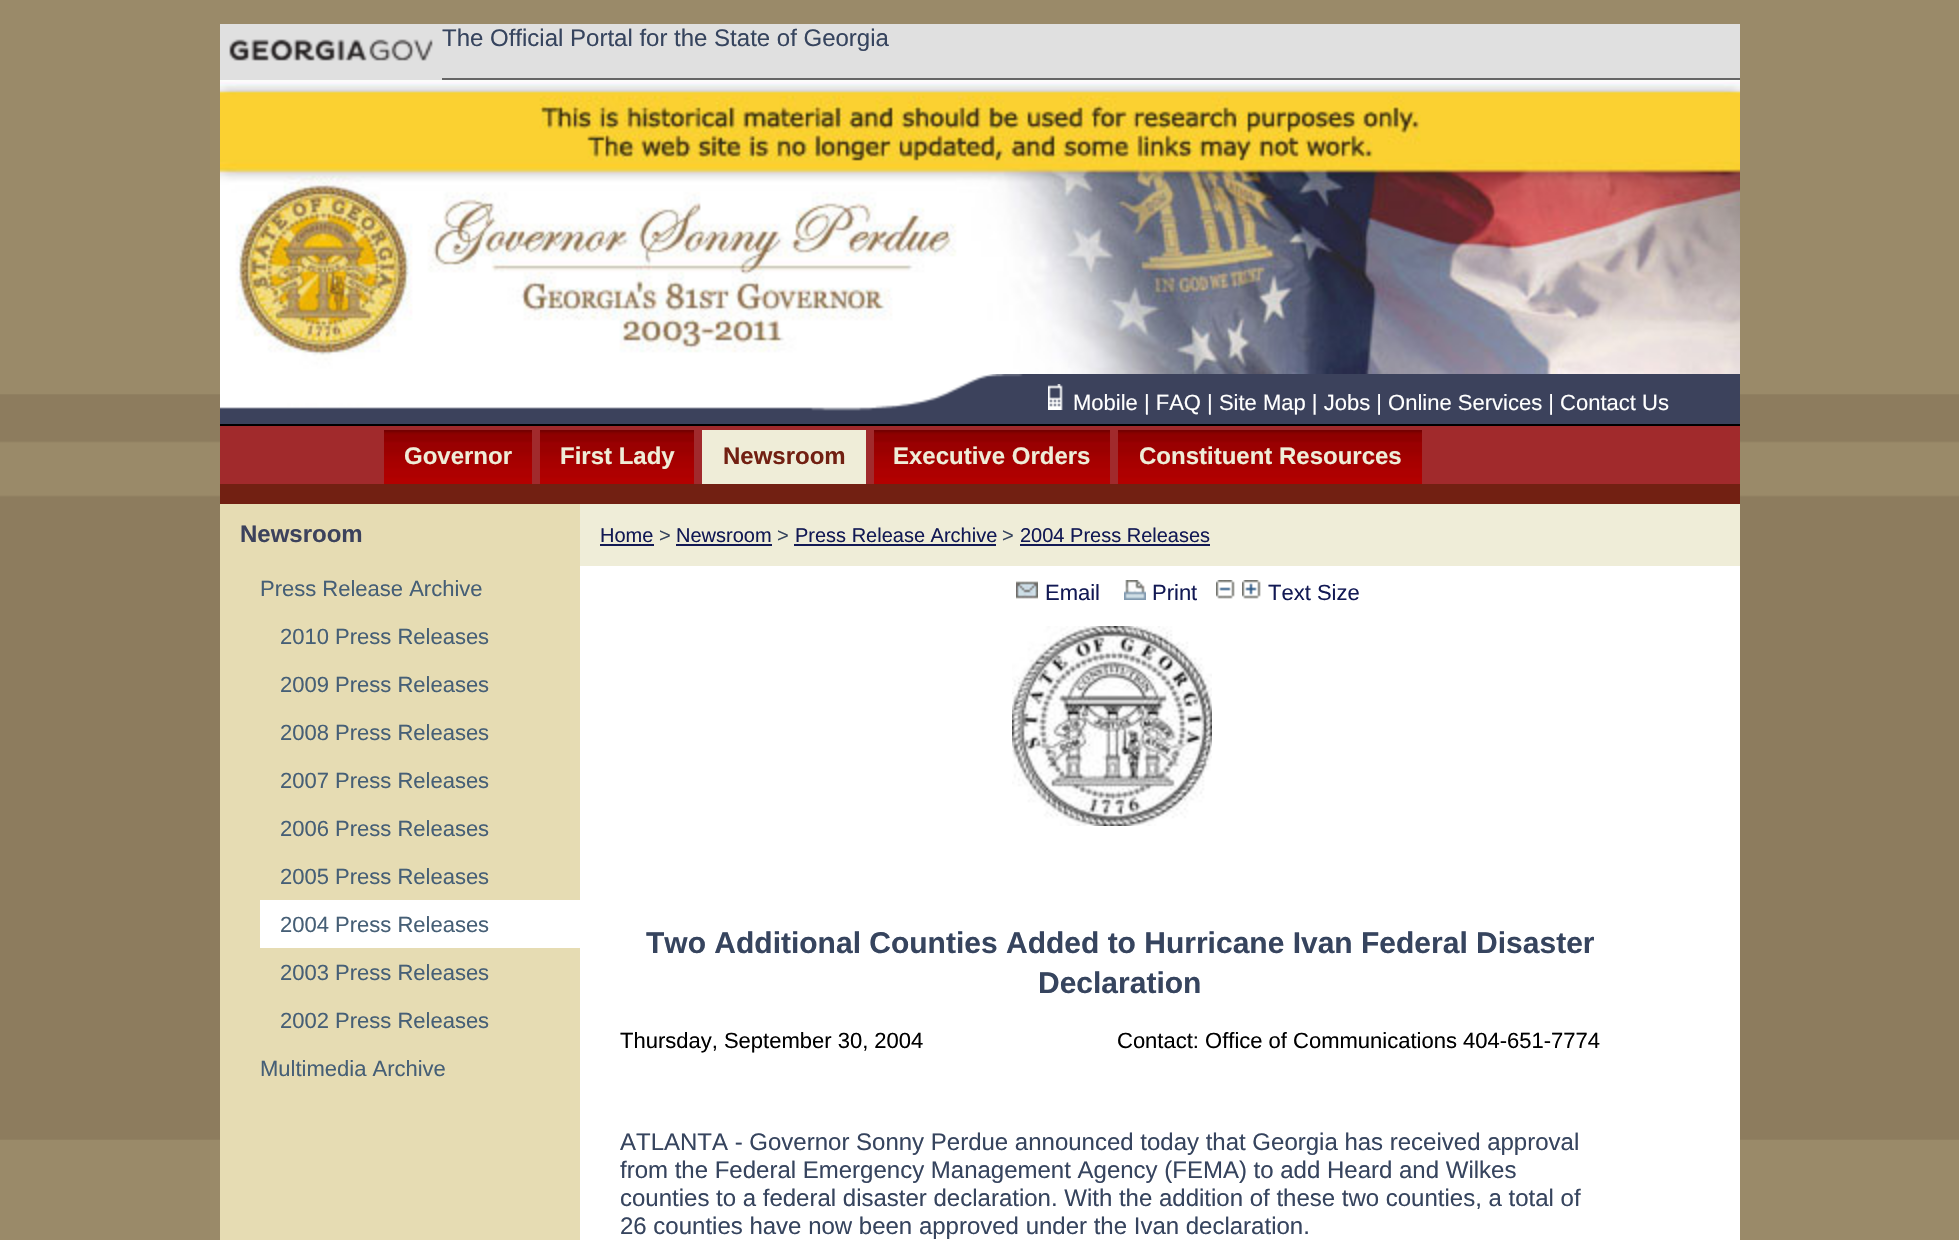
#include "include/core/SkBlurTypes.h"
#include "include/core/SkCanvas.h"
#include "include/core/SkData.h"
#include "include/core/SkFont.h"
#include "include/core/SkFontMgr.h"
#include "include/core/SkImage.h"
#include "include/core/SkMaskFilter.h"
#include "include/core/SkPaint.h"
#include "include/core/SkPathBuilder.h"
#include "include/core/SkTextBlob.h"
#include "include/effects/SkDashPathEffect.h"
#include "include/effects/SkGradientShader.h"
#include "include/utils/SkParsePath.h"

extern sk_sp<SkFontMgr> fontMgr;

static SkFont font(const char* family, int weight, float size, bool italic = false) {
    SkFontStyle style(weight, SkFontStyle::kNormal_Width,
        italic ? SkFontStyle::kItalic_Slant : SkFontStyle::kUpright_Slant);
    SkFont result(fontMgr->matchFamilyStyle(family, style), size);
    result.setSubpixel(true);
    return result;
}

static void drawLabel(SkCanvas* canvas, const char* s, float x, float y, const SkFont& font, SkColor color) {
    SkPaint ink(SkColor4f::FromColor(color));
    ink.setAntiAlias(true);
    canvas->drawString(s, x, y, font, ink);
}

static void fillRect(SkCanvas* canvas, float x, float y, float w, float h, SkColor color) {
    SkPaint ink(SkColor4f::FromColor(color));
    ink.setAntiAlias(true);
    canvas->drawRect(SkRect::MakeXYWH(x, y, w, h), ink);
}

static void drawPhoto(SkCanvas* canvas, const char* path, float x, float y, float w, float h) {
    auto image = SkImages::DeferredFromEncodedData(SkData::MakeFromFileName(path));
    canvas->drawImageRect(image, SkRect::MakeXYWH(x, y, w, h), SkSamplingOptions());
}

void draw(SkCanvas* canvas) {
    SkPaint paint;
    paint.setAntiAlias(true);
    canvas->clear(0xFF9A8A69);
    drawPhoto(canvas, "assets/img1.png", 0, 394, 1959, 746);
    fillRect(canvas, 220, 504, 360, 736, 0xFFE6DCB3);
    fillRect(canvas, 442, 24, 1298, 54, 0xFFE0E0E0);
    fillRect(canvas, 442, 78, 1298, 2, 0xFF666666);
    fillRect(canvas, 220, 24, 222, 56, 0xFFE0E0E0);
    drawPhoto(canvas, "assets/img2.png", 229, 39, 204, 22);
    SkFont font1 = font("Liberation Sans", 400, 24);
    drawLabel(canvas, "The Official Portal for the State of Georgia", 442, 46, font1, 0xFF36445E);
    drawPhoto(canvas, "assets/img3.png", 220, 80, 1520, 294);
    fillRect(canvas, 220, 374, 1520, 50, 0xFF3C425C);
    drawPhoto(canvas, "assets/img4.png", 220, 374, 803, 37);
    fillRect(canvas, 220, 424, 1520, 2, 0xFF000000);
    drawPhoto(canvas, "assets/img5.png", 1048, 384, 15, 26);
    SkFont font2 = font("Liberation Sans", 400, 22);
    drawLabel(canvas, "Mobile | FAQ | Site Map | Jobs | Online Services | Contact Us", 1073, 410, font2, 0xFFFFFFFF);
    fillRect(canvas, 220, 426, 1520, 58, 0xFFA12A2C);
    fillRect(canvas, 220, 484, 1520, 20, 0xFF722012);
    drawPhoto(canvas, "assets/img6.png", 384, 430, 148, 54);
    SkFont font3 = font("Liberation Sans", 700, 24);
    drawLabel(canvas, "Governor", 404, 464, font3, 0xFFEFEDD8);
    drawPhoto(canvas, "assets/img7.png", 540, 430, 154, 54);
    drawLabel(canvas, "First Lady", 560, 464, font3, 0xFFEFEDD8);
    fillRect(canvas, 702, 430, 164, 54, 0xFFEFEDD8);
    drawLabel(canvas, "Newsroom", 723, 464, font3, 0xFF722012);
    drawPhoto(canvas, "assets/img8.png", 874, 430, 236, 54);
    drawLabel(canvas, "Executive Orders", 893, 464, font3, 0xFFEFEDD8);
    drawPhoto(canvas, "assets/img9.png", 1118, 430, 304, 54);
    drawLabel(canvas, "Constituent Resources", 1139, 464, font3, 0xFFEFEDD8);
    drawLabel(canvas, "Newsroom", 240, 542, font3, 0xFF3C425C);
    drawLabel(canvas, "Press Release Archive", 260, 596, font2, 0xFF465F76);
    drawLabel(canvas, "2010 Press Releases", 280, 644, font2, 0xFF465F76);
    drawLabel(canvas, "2009 Press Releases", 280, 692, font2, 0xFF465F76);
    drawLabel(canvas, "2008 Press Releases", 280, 740, font2, 0xFF465F76);
    drawLabel(canvas, "2007 Press Releases", 280, 788, font2, 0xFF465F76);
    drawLabel(canvas, "2006 Press Releases", 280, 836, font2, 0xFF465F76);
    drawLabel(canvas, "2005 Press Releases", 280, 884, font2, 0xFF465F76);
    fillRect(canvas, 260, 900, 320, 48, 0xFFFFFFFF);
    drawLabel(canvas, "2004 Press Releases", 280, 932, font2, 0xFF465F76);
    drawLabel(canvas, "2003 Press Releases", 280, 980, font2, 0xFF465F76);
    drawLabel(canvas, "2002 Press Releases", 280, 1028, font2, 0xFF465F76);
    drawLabel(canvas, "Multimedia Archive", 260, 1076, font2, 0xFF465F76);
    fillRect(canvas, 580, 566, 1160, 674, 0xFFFFFFFF);
    fillRect(canvas, 580, 504, 1160, 62, 0xFFEFEDD8);
    SkFont font4 = font("Liberation Sans", 400, 20);
    drawLabel(canvas, "Home", 600, 542, font4, 0xFF121954);
    fillRect(canvas, 600, 544, 54, 2, 0xFF121954);
    drawLabel(canvas, ">", 659, 542, font4, 0xFF36445E);
    drawLabel(canvas, "Newsroom", 676, 542, font4, 0xFF121954);
    fillRect(canvas, 676, 544, 96, 2, 0xFF121954);
    drawLabel(canvas, ">", 777, 542, font4, 0xFF36445E);
    drawLabel(canvas, "Press Release Archive", 795, 542, font4, 0xFF121954);
    fillRect(canvas, 794, 544, 202, 2, 0xFF121954);
    drawLabel(canvas, ">", 1002, 542, font4, 0xFF36445E);
    drawLabel(canvas, "2004 Press Releases", 1020, 542, font4, 0xFF121954);
    fillRect(canvas, 1020, 544, 190, 2, 0xFF121954);
    drawPhoto(canvas, "assets/img10.png", 1016, 581, 22, 18);
    drawLabel(canvas, "Email", 1045, 600, font2, 0xFF121954);
    drawPhoto(canvas, "assets/img11.png", 1124, 580, 22, 20);
    drawLabel(canvas, "Print", 1152, 600, font2, 0xFF121954);
    drawPhoto(canvas, "assets/img12.png", 1216, 580, 19, 19);
    drawPhoto(canvas, "assets/img13.png", 1242, 580, 19, 19);
    drawLabel(canvas, "Text Size", 1268, 600, font2, 0xFF121954);
    drawPhoto(canvas, "assets/img14.png", 1012, 626, 200, 200);
    SkFont font5 = font("Liberation Sans", 700, 30);
    drawLabel(canvas, "Two Additional Counties Added to Hurricane Ivan Federal Disaster", 646, 953, font5, 0xFF36445E);
    drawLabel(canvas, "Declaration", 1038, 993, font5, 0xFF36445E);
    drawLabel(canvas, "Thursday, September 30, 2004", 620, 1048, font2, 0xFF000000);
    drawLabel(canvas, "Contact: Office of Communications 404-651-7774", 1117, 1048, font2, 0xFF000000);
    drawLabel(canvas, "ATLANTA - Governor Sonny Perdue announced today that Georgia has received approval", 620, 1150, font1, 0xFF36445E);
    drawLabel(canvas, "from the Federal Emergency Management Agency (FEMA) to add Heard and Wilkes", 620, 1178, font1, 0xFF36445E);
    drawLabel(canvas, "counties to a federal disaster declaration. With the addition of these two counties, a total of", 620, 1206, font1, 0xFF36445E);
    drawLabel(canvas, "26 counties have now been approved under the Ivan declaration.", 620, 1234, font1, 0xFF36445E);
}
